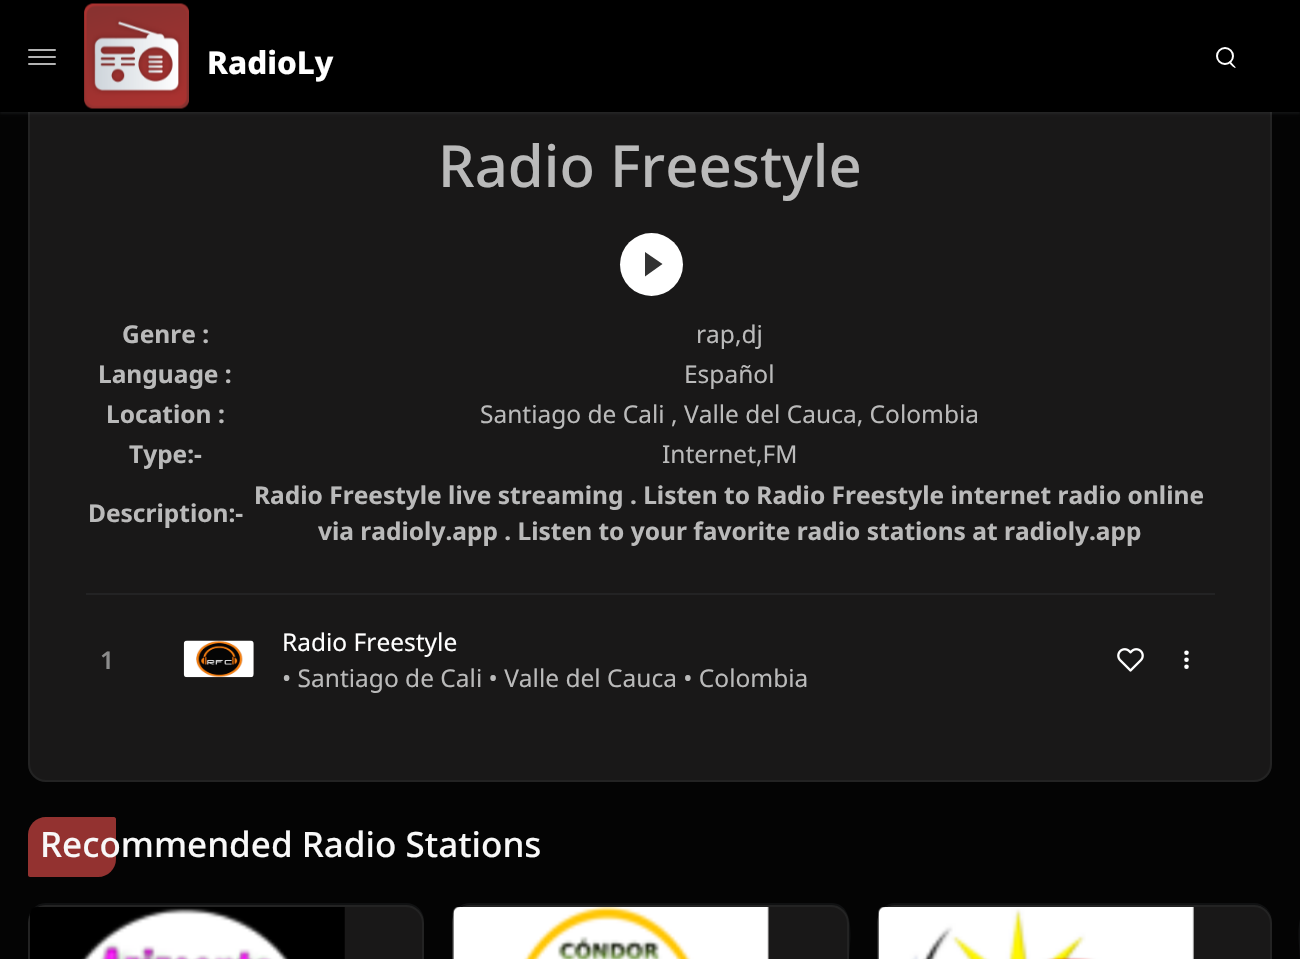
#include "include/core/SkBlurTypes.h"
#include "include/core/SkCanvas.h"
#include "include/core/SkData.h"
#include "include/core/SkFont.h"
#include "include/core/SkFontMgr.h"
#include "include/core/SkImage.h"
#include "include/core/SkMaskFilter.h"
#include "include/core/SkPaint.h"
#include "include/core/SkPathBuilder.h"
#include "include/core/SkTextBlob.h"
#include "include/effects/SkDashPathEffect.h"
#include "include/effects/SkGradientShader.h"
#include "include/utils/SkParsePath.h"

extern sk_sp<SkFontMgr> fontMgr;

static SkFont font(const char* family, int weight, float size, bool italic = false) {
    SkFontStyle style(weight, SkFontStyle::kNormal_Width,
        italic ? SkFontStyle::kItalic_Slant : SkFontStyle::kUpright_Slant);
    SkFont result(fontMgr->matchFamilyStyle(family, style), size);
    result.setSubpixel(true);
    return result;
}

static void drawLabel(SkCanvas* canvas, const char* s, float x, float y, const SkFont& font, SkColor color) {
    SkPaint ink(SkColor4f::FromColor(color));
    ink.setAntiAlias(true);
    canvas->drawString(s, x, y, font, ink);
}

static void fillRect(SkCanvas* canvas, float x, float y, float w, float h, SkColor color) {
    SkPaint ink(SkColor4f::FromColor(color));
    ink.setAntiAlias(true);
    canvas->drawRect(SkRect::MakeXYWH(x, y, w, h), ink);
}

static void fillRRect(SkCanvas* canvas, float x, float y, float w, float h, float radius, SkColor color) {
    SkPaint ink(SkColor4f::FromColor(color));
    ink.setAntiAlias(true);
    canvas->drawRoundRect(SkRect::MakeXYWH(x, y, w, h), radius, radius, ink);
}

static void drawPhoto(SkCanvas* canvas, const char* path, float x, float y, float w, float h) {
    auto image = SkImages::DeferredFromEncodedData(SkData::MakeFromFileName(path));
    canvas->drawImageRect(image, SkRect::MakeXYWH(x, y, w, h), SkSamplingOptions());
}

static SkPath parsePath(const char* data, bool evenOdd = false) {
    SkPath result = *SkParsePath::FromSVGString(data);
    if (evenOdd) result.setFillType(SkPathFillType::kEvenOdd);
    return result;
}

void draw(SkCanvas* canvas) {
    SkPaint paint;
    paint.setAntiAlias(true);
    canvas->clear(0xFF040404);
    paint.setColor(0xFF191818);
    canvas->drawRoundRect(SkRect::MakeXYWH(29, -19, 1242, 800), 17, 17, paint);
    paint.setStroke(true);
    paint.setStrokeWidth(2);
    paint.setColor(0xFF232323);
    canvas->drawRoundRect(SkRect::MakeXYWH(29, -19, 1242, 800), 17, 17, paint);
    paint.setStroke(false);
    paint.setColor(0x1A828C96);
    paint.setMaskFilter(SkMaskFilter::MakeBlur(kNormal_SkBlurStyle, 1));
    canvas->drawRect(SkRect::MakeXYWH(0, 2, 1300, 112), paint);
    paint.setMaskFilter(nullptr);
    fillRect(canvas, 0, 0, 1300, 112, 0xFF000000);
    fillRRect(canvas, 28, 49, 28, 2, 1, 0xFFB3B3B3);
    fillRRect(canvas, 28, 56, 28, 2, 1, 0xFFB3B3B3);
    fillRRect(canvas, 28, 63, 28, 2, 1, 0xFFB3B3B3);
    drawPhoto(canvas, "assets/img1.png", 84, 3, 105, 106);
    SkFont font1 = font("Noto Sans", 800, 31.5f);
    drawLabel(canvas, "RadioLy", 207, 74, font1, 0xFFFFFFFF);
    paint.setStroke(true);
    paint.setColor(0xFFFFFFFF);
    canvas->drawCircle(1225, 56, 8, paint);
    paint.setStroke(false);
    canvas->drawPath(parsePath("M1230.5 61.5L1234.5 66C1236.5 68 1235.5 69 1233.5 67C1232.5 66.5 1228 62.5 1229.5 61.5Z"), paint);
    SkFont font2 = font("Noto Sans", 500, 58);
    drawLabel(canvas, "Radio Freestyle", 438, 187, font2, 0xFFBABABA);
    canvas->drawCircle(651.5f, 264.5f, 31.5f, paint);
    paint.setColor(0xFF333333);
    canvas->drawPath(parsePath("M645 276.5V252L662.5 264Z"), paint);
    SkFont font3 = font("Noto Sans", 700, 24.5f);
    drawLabel(canvas, "Genre :", 122, 343, font3, 0xFFBABABA);
    SkFont font4 = font("Noto Sans", 400, 24.5f);
    drawLabel(canvas, "rap,dj", 696, 343, font4, 0xFFBABABA);
    drawLabel(canvas, "Language :", 98, 383, font3, 0xFFBABABA);
    drawLabel(canvas, "Español", 684, 383, font4, 0xFFBABABA);
    drawLabel(canvas, "Location :", 106, 423, font3, 0xFFBABABA);
    drawLabel(canvas, "Santiago de Cali , Valle del Cauca, Colombia", 480, 423, font4, 0xFFBABABA);
    drawLabel(canvas, "Type:-", 129, 463, font3, 0xFFBABABA);
    drawLabel(canvas, "Internet,FM", 662, 463, font4, 0xFFBABABA);
    drawLabel(canvas, "Description:-", 88, 522, font3, 0xFFBABABA);
    drawLabel(canvas, "Radio Freestyle live streaming . Listen to Radio Freestyle internet radio online", 254, 504, font3, 0xFFBABABA);
    drawLabel(canvas, "via radioly.app . Listen to your favorite radio stations at radioly.app", 318, 540, font3, 0xFFBABABA);
    fillRect(canvas, 86, 593, 1129, 2, 0xFF232324);
    SkFont font5 = font("Noto Sans", 600, 24.5f);
    drawLabel(canvas, "1", 100, 669, font5, 0xFF8C8C8C);
    drawPhoto(canvas, "assets/img2.png", 183, 640, 71, 38);
    drawLabel(canvas, "Radio Freestyle", 282, 651, font4, 0xFFFFFFFF);
    drawLabel(canvas, "• Santiago de Cali • Valle del Cauca • Colombia", 282, 687, font4, 0xFFBABABA);
    drawPhoto(canvas, "assets/img3.png", 1117, 648, 27, 24);
    paint.setColor(0xFFFFFFFF);
    canvas->drawCircle(1186.5f, 659.8f, 2.3f, paint);
    canvas->drawCircle(1186.5f, 652.8f, 2.3f, paint);
    canvas->drawCircle(1186.5f, 666.8f, 2.3f, paint);
    paint.setColor(0xFF933230);
    canvas->drawPath(parsePath("M46 817H114C115 817 116 818 116 819V859C116 869 108 877 98 877H30C29 877 28 876 28 875V835C28 825 36 817 46 817Z"), paint);
    SkFont font6 = font("Noto Sans", 500, 35);
    drawLabel(canvas, "Recommended Radio Stations", 40, 857, font6, 0xFFF8F8F8);
    paint.setColor(0xFF101112);
    canvas->drawPath(parsePath("M46 903C35 903 28 912 28 922C28 913 36 905 46 905H406C416 905 424 913 424 922L423 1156L424 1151V921C424 911 416 903 406 903Z"), paint);
    paint.setColor(0xFF191818);
    canvas->drawRoundRect(SkRect::MakeXYWH(29, 906, 394, 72), 17, 17, paint);
    paint.setStroke(true);
    paint.setColor(0xFF232323);
    canvas->drawRoundRect(SkRect::MakeXYWH(29, 906, 394, 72), 17, 17, paint);
    drawPhoto(canvas, "assets/img4.png", 30, 907, 315, 52);
    paint.setStroke(false);
    paint.setColor(0xFF101112);
    canvas->drawPath(parsePath("M470 903C462 903 455 908 453 915C456 909 462 905 469 905H831C841 905 849 913 849 922V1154V959C849 947 858 903 831 903Z"), paint);
    paint.setColor(0xFF191818);
    canvas->drawRoundRect(SkRect::MakeXYWH(453, 906, 395, 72), 17, 17, paint);
    paint.setStroke(true);
    paint.setColor(0xFF232323);
    canvas->drawRoundRect(SkRect::MakeXYWH(453, 906, 395, 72), 17, 17, paint);
    drawPhoto(canvas, "assets/img5.png", 452, 907, 317, 52);
    paint.setStroke(false);
    paint.setColor(0xFF101112);
    canvas->drawPath(parsePath("M895 903C886 903 879 910 877 918C879 911 886 905 894 905H1255C1263 905 1270 911 1272 918C1270 910 1263 903 1254 903Z"), paint);
    paint.setColor(0xFF191818);
    canvas->drawRoundRect(SkRect::MakeXYWH(878, 906, 393, 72), 17, 17, paint);
    paint.setStroke(true);
    paint.setColor(0xFF232323);
    canvas->drawRoundRect(SkRect::MakeXYWH(878, 906, 393, 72), 17, 17, paint);
    drawPhoto(canvas, "assets/img6.png", 878, 907, 316, 52);
    paint.setStroke(false);
    paint.setColor(0xFF101112);
    canvas->drawPath(parsePath("M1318 903C1291 903 1300 947 1300 959V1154V922C1300 913 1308 905 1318 905H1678C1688 905 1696 913 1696 922V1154V959C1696 947 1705 903 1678 903Z"), paint);
}
